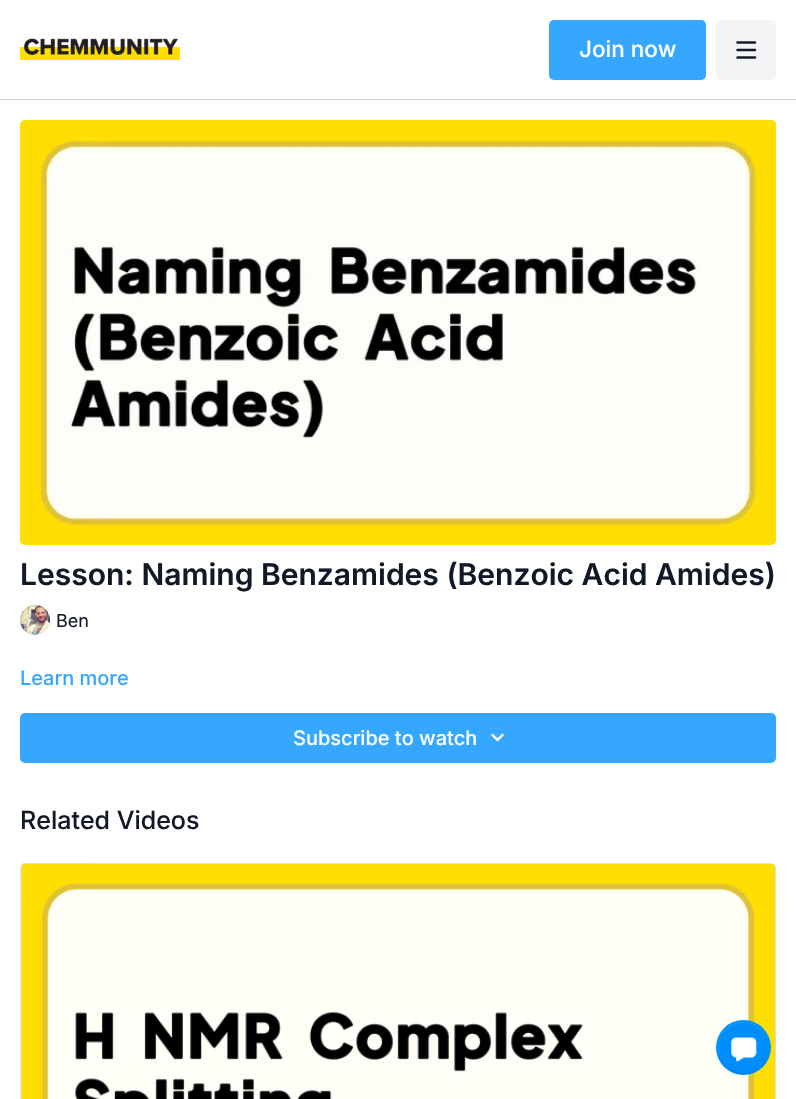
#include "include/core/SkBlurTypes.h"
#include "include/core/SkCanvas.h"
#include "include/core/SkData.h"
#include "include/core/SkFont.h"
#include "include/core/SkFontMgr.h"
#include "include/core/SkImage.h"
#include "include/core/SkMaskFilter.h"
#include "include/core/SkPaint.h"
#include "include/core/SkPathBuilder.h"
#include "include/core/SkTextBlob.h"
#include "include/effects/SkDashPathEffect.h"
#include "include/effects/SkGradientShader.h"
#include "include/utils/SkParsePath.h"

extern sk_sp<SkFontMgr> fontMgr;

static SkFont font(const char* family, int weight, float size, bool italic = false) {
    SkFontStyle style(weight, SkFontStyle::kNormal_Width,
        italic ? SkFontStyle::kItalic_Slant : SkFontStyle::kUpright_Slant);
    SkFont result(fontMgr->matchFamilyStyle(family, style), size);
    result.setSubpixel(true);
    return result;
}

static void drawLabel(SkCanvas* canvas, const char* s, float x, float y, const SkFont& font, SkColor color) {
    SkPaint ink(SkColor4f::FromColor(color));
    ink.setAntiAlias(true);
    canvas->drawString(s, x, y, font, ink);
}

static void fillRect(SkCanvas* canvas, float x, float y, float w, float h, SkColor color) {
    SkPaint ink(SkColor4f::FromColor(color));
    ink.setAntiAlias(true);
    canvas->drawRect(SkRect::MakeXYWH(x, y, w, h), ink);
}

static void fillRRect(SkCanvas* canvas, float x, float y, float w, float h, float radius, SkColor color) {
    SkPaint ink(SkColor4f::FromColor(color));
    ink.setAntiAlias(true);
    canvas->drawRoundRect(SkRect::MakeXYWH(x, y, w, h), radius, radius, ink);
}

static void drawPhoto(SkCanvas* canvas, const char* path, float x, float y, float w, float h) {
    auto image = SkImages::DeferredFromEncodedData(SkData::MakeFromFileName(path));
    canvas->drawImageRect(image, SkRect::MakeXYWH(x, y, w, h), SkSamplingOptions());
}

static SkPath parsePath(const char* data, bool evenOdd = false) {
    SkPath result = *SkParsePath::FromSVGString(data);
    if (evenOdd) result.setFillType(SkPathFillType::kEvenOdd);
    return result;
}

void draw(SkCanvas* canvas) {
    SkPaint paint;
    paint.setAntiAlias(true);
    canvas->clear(0xFFFFFFFF);
    fillRect(canvas, 0, 99, 796, 1, 0xFFD1D5DB);
    drawPhoto(canvas, "assets/img1.png", 20, 38, 160, 22);
    fillRRect(canvas, 549, 20, 157, 60, 5, 0xFF35A7FF);
    SkFont font1 = font("Inter", 500, 22.5f);
    drawLabel(canvas, "Join now", 579, 57, font1, 0xFFFFFFFF);
    fillRRect(canvas, 716, 20, 60, 60, 5, 0xFFF3F4F6);
    drawPhoto(canvas, "assets/img2.png", 736, 41, 21, 18);
    drawPhoto(canvas, "assets/img3.png", 20, 120, 757, 425);
    SkFont font2 = font("Inter", 600, 30);
    drawLabel(canvas, "Lesson: Naming Benzamides (Benzoic Acid Amides)", 20, 585, font2, 0xFF111827);
    drawPhoto(canvas, "assets/img4.png", 20, 605, 30, 30);
    SkFont font3 = font("Inter", 400, 18);
    drawLabel(canvas, "Ben", 56, 627, font3, 0xFF111827);
    SkFont font4 = font("Inter", 500, 20);
    drawLabel(canvas, "Learn more", 20, 685, font4, 0xFF35A7FF);
    fillRRect(canvas, 20, 713, 756, 50, 5, 0xFF35A7FF);
    drawLabel(canvas, "Subscribe to watch", 293, 745, font4, 0xFFFFFFFF);
    drawPhoto(canvas, "assets/img5.png", 491, 733, 13, 9);
    SkFont font5 = font("Inter", 500, 25);
    drawLabel(canvas, "Related Videos", 20, 829, font5, 0xFF111827);
    canvas->save();
    canvas->clipPath(parsePath("M25 863H771C774 863 776 865 776 868V1283C776 1286 774 1288 771 1288H25C22 1288 20 1286 20 1283V868C20 865 22 863 25 863Z"), true);
    {
        const SkColor colors[] = {0xFFDEDEDE, 0xFFE0E0E0, 0xFFE3E3E3};
        const float stops[] = {0.08f, 0.18f, 0.33f};
        const SkPoint ends[] = {{-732, 1075}, {21, 1075}};
        paint.setShader(SkGradientShader::MakeLinear(ends, colors, stops, 3, SkTileMode::kClamp));
        paint.setAlpha(255);
    }
    canvas->drawRect(SkRect::MakeXYWH(20, 863, 1, 236), paint);
    {
        const SkColor colors[] = {0xFFDEDEDE, 0xFFE1E1E1, 0xFFE4E4E4};
        const float stops[] = {0.08f, 0.18f, 0.33f};
        const SkPoint ends[] = {{21, 1075}, {775, 1075}};
        paint.setShader(SkGradientShader::MakeLinear(ends, colors, stops, 3, SkTileMode::kClamp));
        paint.setAlpha(255);
    }
    canvas->drawRect(SkRect::MakeXYWH(21, 863, 754, 236), paint);
    {
        const SkColor colors[] = {0xFFDEDEDE, 0xFFE0E0E0, 0xFFE3E3E3};
        const float stops[] = {0.08f, 0.18f, 0.33f};
        const SkPoint ends[] = {{775, 1075}, {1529, 1075}};
        paint.setShader(SkGradientShader::MakeLinear(ends, colors, stops, 3, SkTileMode::kClamp));
        paint.setAlpha(255);
    }
    canvas->drawRect(SkRect::MakeXYWH(775, 863, 1, 236), paint);
    canvas->restore();
    drawPhoto(canvas, "assets/img6.png", 21, 864, 754, 235);
    paint.setShader(nullptr);
    paint.setColor(0xFF0090FF);
    canvas->drawCircle(743.5f, 1047.5f, 27.5f, paint);
    drawPhoto(canvas, "assets/img7.png", 719, 1021, 50, 53);
}
